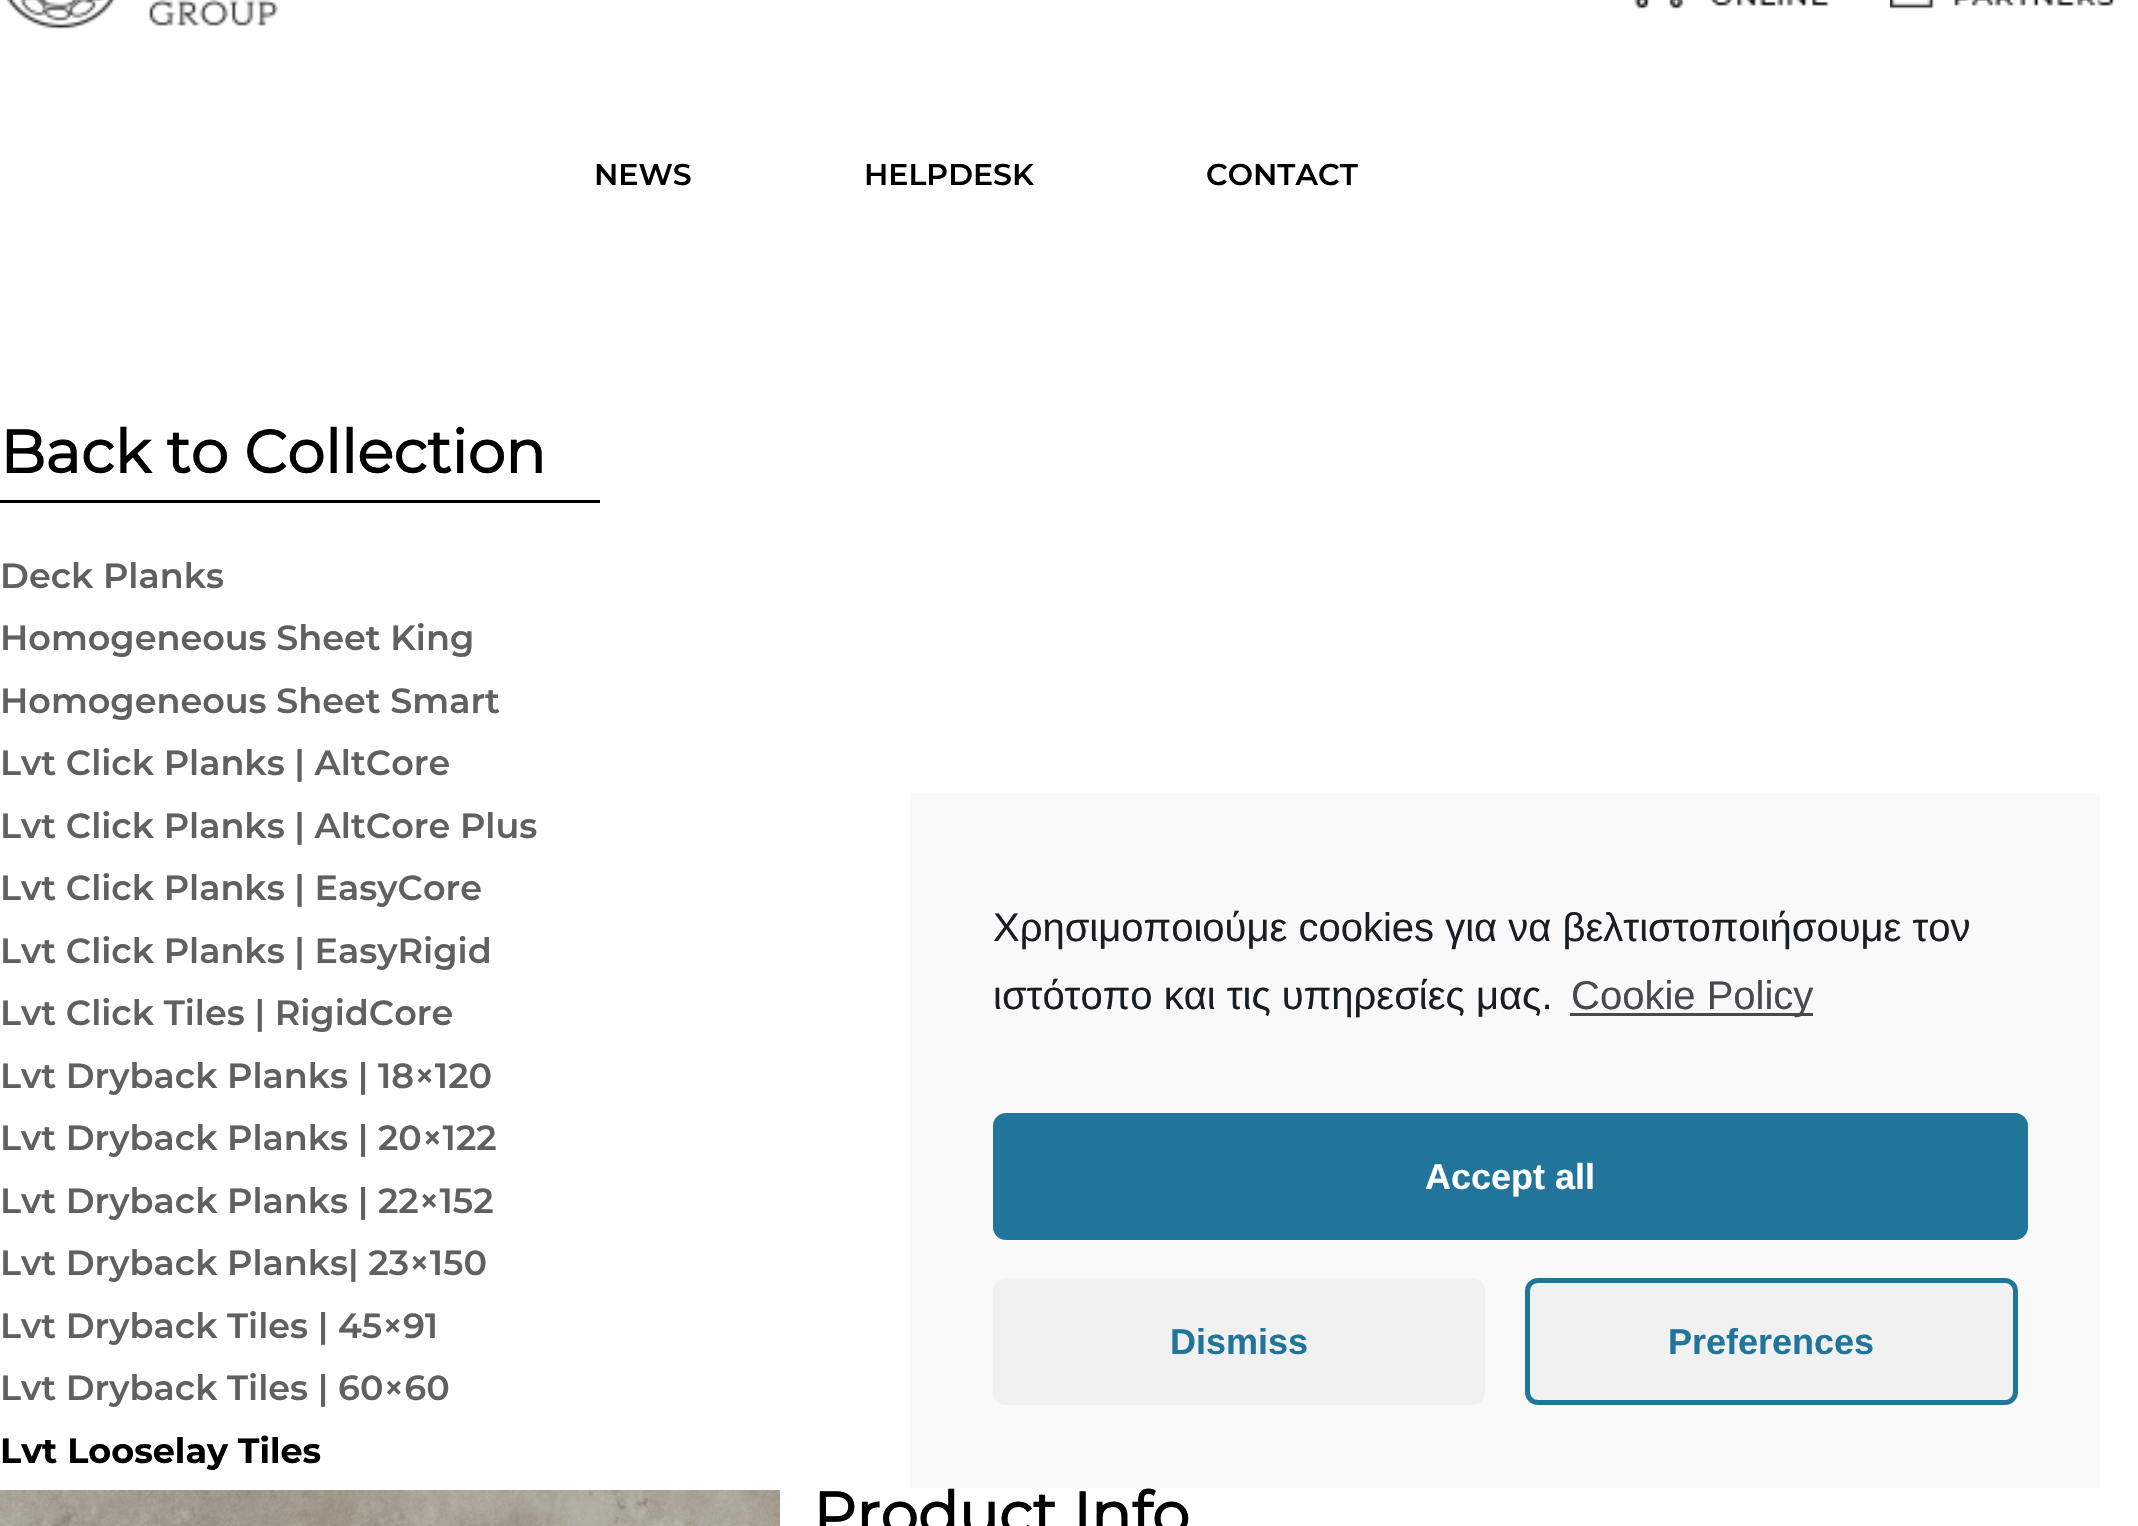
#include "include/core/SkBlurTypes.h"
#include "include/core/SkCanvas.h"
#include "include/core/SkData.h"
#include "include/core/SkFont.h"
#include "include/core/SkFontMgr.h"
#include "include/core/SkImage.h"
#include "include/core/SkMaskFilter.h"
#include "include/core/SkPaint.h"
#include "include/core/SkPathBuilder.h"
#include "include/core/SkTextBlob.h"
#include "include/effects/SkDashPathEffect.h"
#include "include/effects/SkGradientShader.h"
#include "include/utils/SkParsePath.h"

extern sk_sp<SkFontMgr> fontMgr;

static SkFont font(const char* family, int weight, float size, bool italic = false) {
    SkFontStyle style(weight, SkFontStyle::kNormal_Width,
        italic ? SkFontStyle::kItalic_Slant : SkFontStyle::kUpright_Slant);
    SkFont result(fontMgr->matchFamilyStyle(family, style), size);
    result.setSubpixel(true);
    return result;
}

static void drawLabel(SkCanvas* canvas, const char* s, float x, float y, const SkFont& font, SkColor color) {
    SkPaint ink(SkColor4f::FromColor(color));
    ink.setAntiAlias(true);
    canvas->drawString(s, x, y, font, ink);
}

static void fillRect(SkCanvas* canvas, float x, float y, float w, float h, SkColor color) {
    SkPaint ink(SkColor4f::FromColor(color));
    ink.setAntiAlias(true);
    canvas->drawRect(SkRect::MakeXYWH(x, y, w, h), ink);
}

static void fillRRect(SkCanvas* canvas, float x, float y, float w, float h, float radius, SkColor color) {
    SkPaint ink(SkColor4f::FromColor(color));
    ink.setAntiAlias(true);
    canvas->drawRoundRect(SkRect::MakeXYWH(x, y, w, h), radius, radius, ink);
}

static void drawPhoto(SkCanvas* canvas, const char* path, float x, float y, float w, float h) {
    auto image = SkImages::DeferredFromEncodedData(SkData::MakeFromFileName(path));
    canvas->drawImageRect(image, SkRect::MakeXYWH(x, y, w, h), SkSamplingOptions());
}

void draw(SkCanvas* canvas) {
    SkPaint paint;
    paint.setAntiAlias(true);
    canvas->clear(0xFFFFFFFF);
    drawPhoto(canvas, "assets/img1.png", 6, 0, 273, 29);
    drawPhoto(canvas, "assets/img2.png", 1634, 0, 195, 9);
    drawPhoto(canvas, "assets/img3.png", 1890, 0, 225, 9);
    SkFont font1 = font("Montserrat", 600, 30);
    drawLabel(canvas, "NEWS", 594, 185, font1, 0xFF000000);
    drawLabel(canvas, "HELPDESK", 864, 185, font1, 0xFF000000);
    drawLabel(canvas, "CONTACT", 1206, 185, font1, 0xFF000000);
    fillRect(canvas, 0, 500, 600, 3, 0xFF000000);
    SkFont font2 = font("Montserrat", 700, 60);
    drawLabel(canvas, "Back to Collection", 0, 473, font2, 0xFF000000);
    SkFont font3 = font("Montserrat", 600, 35);
    drawLabel(canvas, "Deck Planks", 0, 588, font3, 0xFF606060);
    drawLabel(canvas, "Homogeneous Sheet King", 0, 650, font3, 0xFF606060);
    drawLabel(canvas, "Homogeneous Sheet Smart", 0, 713, font3, 0xFF606060);
    drawLabel(canvas, "Lvt Click Planks | AltCore", 0, 775, font3, 0xFF606060);
    drawLabel(canvas, "Lvt Click Planks | AltCore Plus", 0, 838, font3, 0xFF606060);
    drawLabel(canvas, "Lvt Click Planks | EasyCore", 0, 900, font3, 0xFF606060);
    drawLabel(canvas, "Lvt Click Planks | EasyRigid", 0, 963, font3, 0xFF606060);
    drawLabel(canvas, "Lvt Click Tiles | RigidCore", 0, 1025, font3, 0xFF606060);
    drawLabel(canvas, "Lvt Dryback Planks | 18×120", 0, 1088, font3, 0xFF606060);
    drawLabel(canvas, "Lvt Dryback Planks | 20×122", 0, 1150, font3, 0xFF606060);
    drawLabel(canvas, "Lvt Dryback Planks | 22×152", 0, 1213, font3, 0xFF606060);
    drawLabel(canvas, "Lvt Dryback Planks| 23×150", 0, 1275, font3, 0xFF606060);
    drawLabel(canvas, "Lvt Dryback Tiles | 45×91", 0, 1338, font3, 0xFF606060);
    drawLabel(canvas, "Lvt Dryback Tiles | 60×60", 0, 1400, font3, 0xFF606060);
    SkFont font4 = font("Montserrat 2", 700, 35);
    drawLabel(canvas, "Lvt Looselay Tiles", 0, 1463, font4, 0xFF000000);
    drawPhoto(canvas, "assets/img4.png", 0, 1490, 780, 36);
    drawLabel(canvas, "Product Info", 813, 1535, font2, 0xFF000000);
    fillRect(canvas, 910, 793, 1190, 695, 0xFFF9F9F9);
    SkFont font5 = font("Liberation Sans", 400, 40);
    drawLabel(canvas, "Χρησιμοποιούμε cookies για να βελτιστοποιήσουμε τον", 993, 941, font5, 0xFF191E23);
    drawLabel(canvas, "ιστότοπο και τις υπηρεσίες μας.", 993, 1009, font5, 0xFF191E23);
    fillRect(canvas, 1570, 1013, 243, 3, 0xFF464A4E);
    drawLabel(canvas, "Cookie Policy", 1571, 1009, font5, 0xFF464A4E);
    paint.setColor(0xFF21759B);
    canvas->drawRoundRect(SkRect::MakeXYWH(995.5f, 1115.5f, 1030, 122), 10.5f, 10.5f, paint);
    paint.setStroke(true);
    paint.setStrokeWidth(5);
    canvas->drawRoundRect(SkRect::MakeXYWH(995.5f, 1115.5f, 1030, 122), 10.5f, 10.5f, paint);
    SkFont font6 = font("Liberation Sans", 700, 36);
    drawLabel(canvas, "Accept all", 1425, 1189, font6, 0xFFFFFFFF);
    fillRRect(canvas, 993, 1278, 492, 127, 13, 0xFFF1F1F1);
    drawLabel(canvas, "Dismiss", 1170, 1354, font6, 0xFF21759B);
    paint.setStroke(false);
    paint.setColor(0xFFF1F1F1);
    canvas->drawRoundRect(SkRect::MakeXYWH(1527.5f, 1280.5f, 488, 122), 10.5f, 10.5f, paint);
    paint.setStroke(true);
    paint.setColor(0xFF21759B);
    canvas->drawRoundRect(SkRect::MakeXYWH(1527.5f, 1280.5f, 488, 122), 10.5f, 10.5f, paint);
    drawLabel(canvas, "Preferences", 1668, 1354, font6, 0xFF21759B);
}
